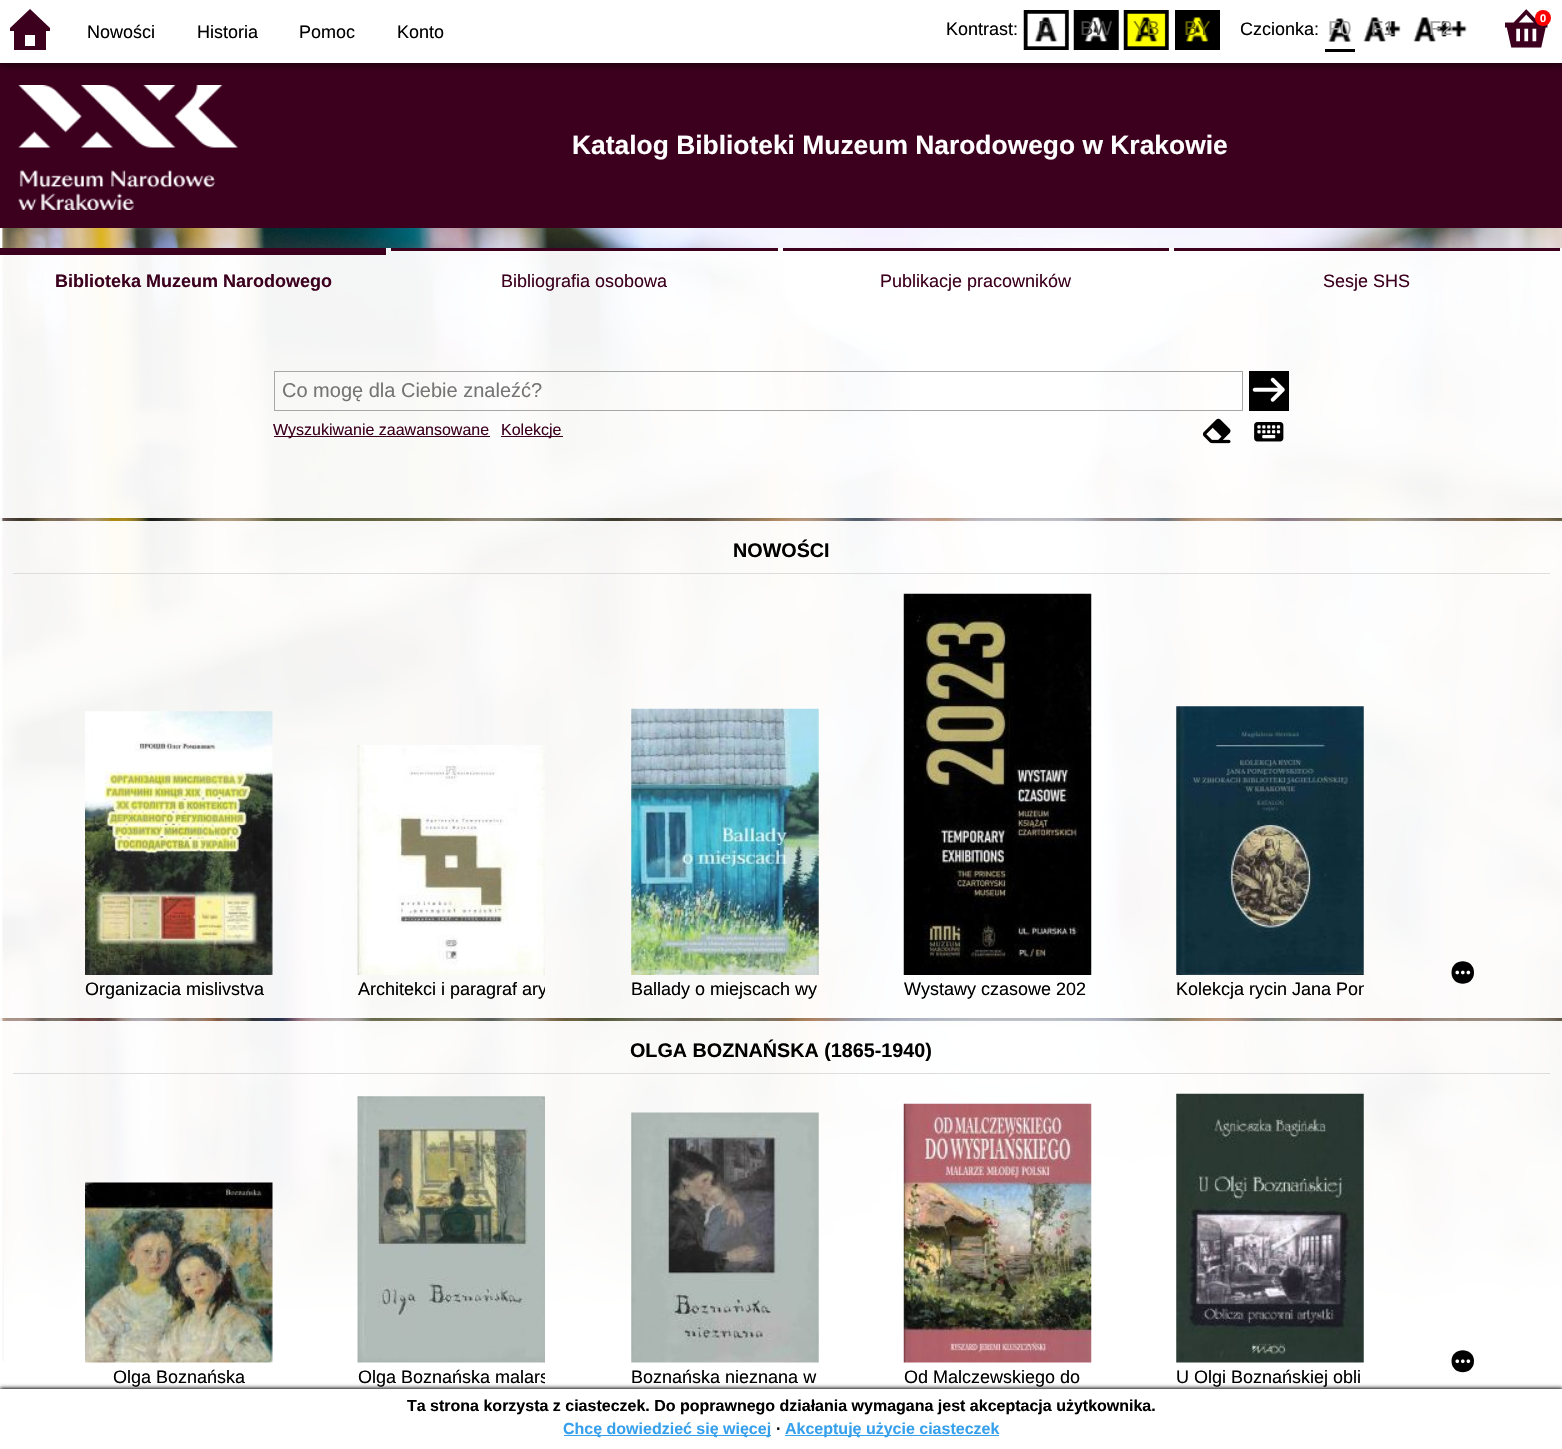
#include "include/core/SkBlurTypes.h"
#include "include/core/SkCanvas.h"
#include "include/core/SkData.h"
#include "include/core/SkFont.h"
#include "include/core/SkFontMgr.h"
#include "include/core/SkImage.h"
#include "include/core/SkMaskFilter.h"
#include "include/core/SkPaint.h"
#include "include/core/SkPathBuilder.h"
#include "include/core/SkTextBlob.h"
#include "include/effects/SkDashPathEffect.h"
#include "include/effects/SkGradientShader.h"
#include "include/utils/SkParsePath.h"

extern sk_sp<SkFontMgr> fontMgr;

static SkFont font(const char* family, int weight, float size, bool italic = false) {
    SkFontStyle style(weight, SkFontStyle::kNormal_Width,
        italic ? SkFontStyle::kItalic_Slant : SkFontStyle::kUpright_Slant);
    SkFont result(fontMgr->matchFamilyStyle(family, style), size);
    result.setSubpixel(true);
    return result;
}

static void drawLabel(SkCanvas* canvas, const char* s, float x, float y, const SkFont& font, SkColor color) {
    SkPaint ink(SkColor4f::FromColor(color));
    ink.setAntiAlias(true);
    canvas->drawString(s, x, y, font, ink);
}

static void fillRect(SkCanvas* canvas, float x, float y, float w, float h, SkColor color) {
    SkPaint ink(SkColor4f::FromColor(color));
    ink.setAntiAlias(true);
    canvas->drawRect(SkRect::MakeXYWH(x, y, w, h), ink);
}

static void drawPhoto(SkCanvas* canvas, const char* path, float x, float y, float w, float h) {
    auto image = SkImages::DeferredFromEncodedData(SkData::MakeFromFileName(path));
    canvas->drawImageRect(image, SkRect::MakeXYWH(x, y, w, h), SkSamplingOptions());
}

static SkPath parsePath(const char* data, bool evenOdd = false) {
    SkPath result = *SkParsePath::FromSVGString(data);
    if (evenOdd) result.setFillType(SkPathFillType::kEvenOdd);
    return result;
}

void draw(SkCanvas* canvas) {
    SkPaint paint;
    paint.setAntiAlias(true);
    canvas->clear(0xFFFFFFFF);
    drawPhoto(canvas, "assets/img1.png", 0, 228, 1562, 1134);
    fillRect(canvas, 0, 63, 1562, 165, 0xFF3C001E);
    paint.setColor(0xA6000000);
    paint.setMaskFilter(SkMaskFilter::MakeBlur(kNormal_SkBlurStyle, 4));
    canvas->drawRect(SkRect::MakeXYWH(0, 3, 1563, 62), paint);
    paint.setMaskFilter(nullptr);
    fillRect(canvas, 0, 0, 1562, 63, 0xFFFFFFFF);
    paint.setColor(0xFF3C001E);
    canvas->drawPath(parsePath("M50 31H46V50H14V31H10V28L30 9L50 28ZM35 46V35H25V46Z"), paint);
    SkFont font1 = font("Liberation Sans", 400, 18);
    drawLabel(canvas, "Nowości", 87, 38, font1, 0xFF000000);
    drawLabel(canvas, "Historia", 197, 38, font1, 0xFF000000);
    drawLabel(canvas, "Pomoc", 299, 38, font1, 0xFF000000);
    drawLabel(canvas, "Konto", 397, 38, font1, 0xFF000000);
    drawPhoto(canvas, "assets/img2.png", 1505, 9, 43, 39);
    paint.setColor(0xFFFF0000);
    canvas->drawCircle(1543, 18, 8, paint);
    SkFont font2 = font("Liberation Sans", 700, 11);
    drawLabel(canvas, "0", 1540, 22, font2, 0xFFFFFFFF);
    drawLabel(canvas, "Kontrast:", 946, 35, font1, 0xFF000000);
    drawPhoto(canvas, "assets/img3.png", 1023, 10, 46, 40);
    SkFont font3 = font("Liberation Sans", 400, 20);
    drawLabel(canvas, "D", 1038, 35, font3, 0xFF2B2B2B);
    drawPhoto(canvas, "assets/img4.png", 1073, 10, 46, 40);
    drawLabel(canvas, "BW", 1080, 35, font3, 0xFF484848);
    drawPhoto(canvas, "assets/img5.png", 1123, 10, 46, 40);
    drawLabel(canvas, "YB", 1133, 35, font3, 0xFF888800);
    drawPhoto(canvas, "assets/img6.png", 1175, 10, 45, 40);
    drawLabel(canvas, "BY", 1184, 35, font3, 0xFF666600);
    drawLabel(canvas, "Czcionka:", 1240, 35, font1, 0xFF000000);
    drawPhoto(canvas, "assets/img7.png", 1328, 18, 24, 24);
    fillRect(canvas, 1325, 49, 30, 3, 0xFF000000);
    drawLabel(canvas, "F0", 1328, 35, font3, 0xFFA4A4A4);
    drawPhoto(canvas, "assets/img8.png", 1363, 17, 38, 25);
    drawLabel(canvas, "F1", 1371, 35, font3, 0xFF848484);
    drawPhoto(canvas, "assets/img9.png", 1413, 17, 54, 25);
    drawLabel(canvas, "F2", 1429, 35, font3, 0xFF9D9D9D);
    drawPhoto(canvas, "assets/img10.png", 18, 85, 220, 125);
    SkFont font4 = font("Liberation Sans", 700, 26.4f);
    drawLabel(canvas, "Katalog Biblioteki Muzeum Narodowego w Krakowie", 572, 154, font4, 0xFFFFFFFF);
    canvas->save();
    canvas->clipPath(parsePath("M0 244H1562V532H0ZM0 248H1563V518H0Z", true), true);
    paint.setColor(0x40000000);
    paint.setMaskFilter(SkMaskFilter::MakeBlur(kNormal_SkBlurStyle, 2.5f));
    canvas->drawRect(SkRect::MakeXYWH(3, 253, 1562, 270), paint);
    paint.setMaskFilter(nullptr);
    canvas->restore();
    fillRect(canvas, 0, 248, 1562, 270, 0xF2FFFFFF);
    fillRect(canvas, 0, 248, 386, 7, 0xFF3C001E);
    SkFont font5 = font("Liberation Sans", 700, 18);
    drawLabel(canvas, "Biblioteka Muzeum Narodowego", 55, 287, font5, 0xFF3C001E);
    fillRect(canvas, 391, 248, 387, 3, 0xFF3C001E);
    drawLabel(canvas, "Bibliografia osobowa", 501, 287, font1, 0xFF3C001E);
    fillRect(canvas, 783, 248, 386, 3, 0xFF3C001E);
    drawLabel(canvas, "Publikacje pracowników", 880, 287, font1, 0xFF3C001E);
    fillRect(canvas, 1174, 248, 386, 3, 0xFF3C001E);
    drawLabel(canvas, "Sesje SHS", 1323, 287, font1, 0xFF3C001E);
    paint.setStroke(true);
    paint.setStrokeWidth(1);
    paint.setColor(0xFFA7A7A7);
    canvas->drawRect(SkRect::MakeXYWH(274.5f, 371.5f, 968, 39), paint);
    drawLabel(canvas, "Co mogę dla Ciebie znaleźć?", 282, 397, font3, 0xFF757575);
    fillRect(canvas, 1249, 371, 40, 40, 0xFF000000);
    drawPhoto(canvas, "assets/img11.png", 1252, 377, 33, 25);
    fillRect(canvas, 274, 436, 216, 1, 0xFF3C001E);
    SkFont font6 = font("Liberation Sans", 400, 16);
    drawLabel(canvas, "Wyszukiwanie zaawansowane", 273, 435, font6, 0xFF3C001E);
    fillRect(canvas, 501, 436, 62, 1, 0xFF3C001E);
    drawLabel(canvas, "Kolekcje", 501, 435, font6, 0xFF3C001E);
    drawPhoto(canvas, "assets/img12.png", 1202, 418, 29, 26);
    drawPhoto(canvas, "assets/img13.png", 1254, 422, 30, 20);
    canvas->save();
    canvas->clipPath(parsePath("M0 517H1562V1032H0ZM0 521H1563V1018H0Z", true), true);
    paint.setStroke(false);
    paint.setColor(0x40000000);
    paint.setMaskFilter(SkMaskFilter::MakeBlur(kNormal_SkBlurStyle, 2.5f));
    canvas->drawRect(SkRect::MakeXYWH(3, 526, 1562, 497), paint);
    paint.setMaskFilter(nullptr);
    canvas->restore();
    fillRect(canvas, 0, 521, 1562, 497, 0xF2FFFFFF);
    fillRect(canvas, 13, 573, 1537, 1, 0xFFDDDDDD);
    SkFont font7 = font("Liberation Sans", 700, 19.75f);
    drawLabel(canvas, "NOWOŚCI", 733, 557, font7, 0xFF000000);
    paint.setColor(0xFF000000);
    canvas->drawPath(parsePath("M1451.5 972.5C1451.5 957.5 1474 957.5 1474 972.5C1474 987.5 1451.5 987.5 1451.5 972.5Z"), paint);
    drawPhoto(canvas, "assets/img14.png", 1455, 970, 16, 5);
    drawPhoto(canvas, "assets/img15.png", 85, 711, 188, 264);
    drawLabel(canvas, "Organizacia mislivstva", 85, 995, font1, 0xFF000000);
    drawPhoto(canvas, "assets/img16.png", 357, 745, 188, 230);
    canvas->save();
    canvas->clipRect(SkRect::MakeXYWH(358, 979, 187, 26));
    drawLabel(canvas, "Architekci i paragraf ary", 358, 995, font1, 0xFF000000);
    canvas->restore();
    drawPhoto(canvas, "assets/img17.png", 631, 708, 188, 267);
    drawLabel(canvas, "Ballady o miejscach wy", 631, 995, font1, 0xFF000000);
    drawPhoto(canvas, "assets/img18.png", 903, 593, 189, 382);
    drawLabel(canvas, "Wystawy czasowe 202", 904, 995, font1, 0xFF000000);
    drawPhoto(canvas, "assets/img19.png", 1176, 706, 188, 269);
    canvas->save();
    canvas->clipRect(SkRect::MakeXYWH(1176, 979, 188, 26));
    drawLabel(canvas, "Kolekcja rycin Jana Pon", 1176, 995, font1, 0xFF000000);
    canvas->restore();
    fillRect(canvas, 0, 1021, 1562, 341, 0xF2FFFFFF);
    fillRect(canvas, 13, 1073, 1537, 1, 0xFFDDDDDD);
    drawLabel(canvas, "OLGA BOZNAŃSKA (1865-1940)", 630, 1057, font7, 0xFF000000);
    canvas->drawPath(parsePath("M1451.5 1361C1451.5 1346.5 1474 1346.5 1474 1361C1474 1376 1451.5 1376 1451.5 1361Z"), paint);
    drawPhoto(canvas, "assets/img20.png", 1455, 1359, 16, 5);
    drawPhoto(canvas, "assets/img21.png", 85, 1182, 188, 181);
    drawLabel(canvas, "Olga Boznańska", 113, 1383, font1, 0xFF000000);
    drawPhoto(canvas, "assets/img22.png", 357, 1096, 188, 267);
    canvas->save();
    canvas->clipRect(SkRect::MakeXYWH(358, 1366, 187, 27));
    drawLabel(canvas, "Olga Boznańska malars", 358, 1383, font1, 0xFF000000);
    canvas->restore();
    drawPhoto(canvas, "assets/img23.png", 631, 1112, 188, 251);
    drawLabel(canvas, "Boznańska nieznana w", 631, 1383, font1, 0xFF000000);
    drawPhoto(canvas, "assets/img24.png", 903, 1103, 189, 260);
    drawLabel(canvas, "Od Malczewskiego do", 904, 1383, font1, 0xFF000000);
    drawPhoto(canvas, "assets/img25.png", 1176, 1093, 188, 270);
    drawLabel(canvas, "U Olgi Boznańskiej obli", 1176, 1383, font1, 0xFF000000);
    paint.setMaskFilter(SkMaskFilter::MakeBlur(kNormal_SkBlurStyle, 2));
    canvas->drawRect(SkRect::MakeXYWH(0, 1388, 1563, 61), paint);
    paint.setMaskFilter(nullptr);
    fillRect(canvas, 0, 1389, 1562, 60, 0xFFFFFFFF);
    SkFont font8 = font("Liberation Sans", 700, 16);
    drawLabel(canvas, "Ta strona korzysta z ciasteczek. Do poprawnego działania wymagana jest akceptacja użytkownika.", 407, 1411, font8, 0xFF000000);
    fillRect(canvas, 564, 1435, 207, 1, 0xFF36A0EC);
    drawLabel(canvas, "Chcę dowiedzieć się więcej", 563, 1434, font8, 0xFF36A0EC);
    drawLabel(canvas, "∙", 776, 1434, font8, 0xFF000000);
    fillRect(canvas, 785, 1435, 214, 1, 0xFF36A0EC);
    drawLabel(canvas, "Akceptuję użycie ciasteczek", 785, 1434, font8, 0xFF36A0EC);
}
